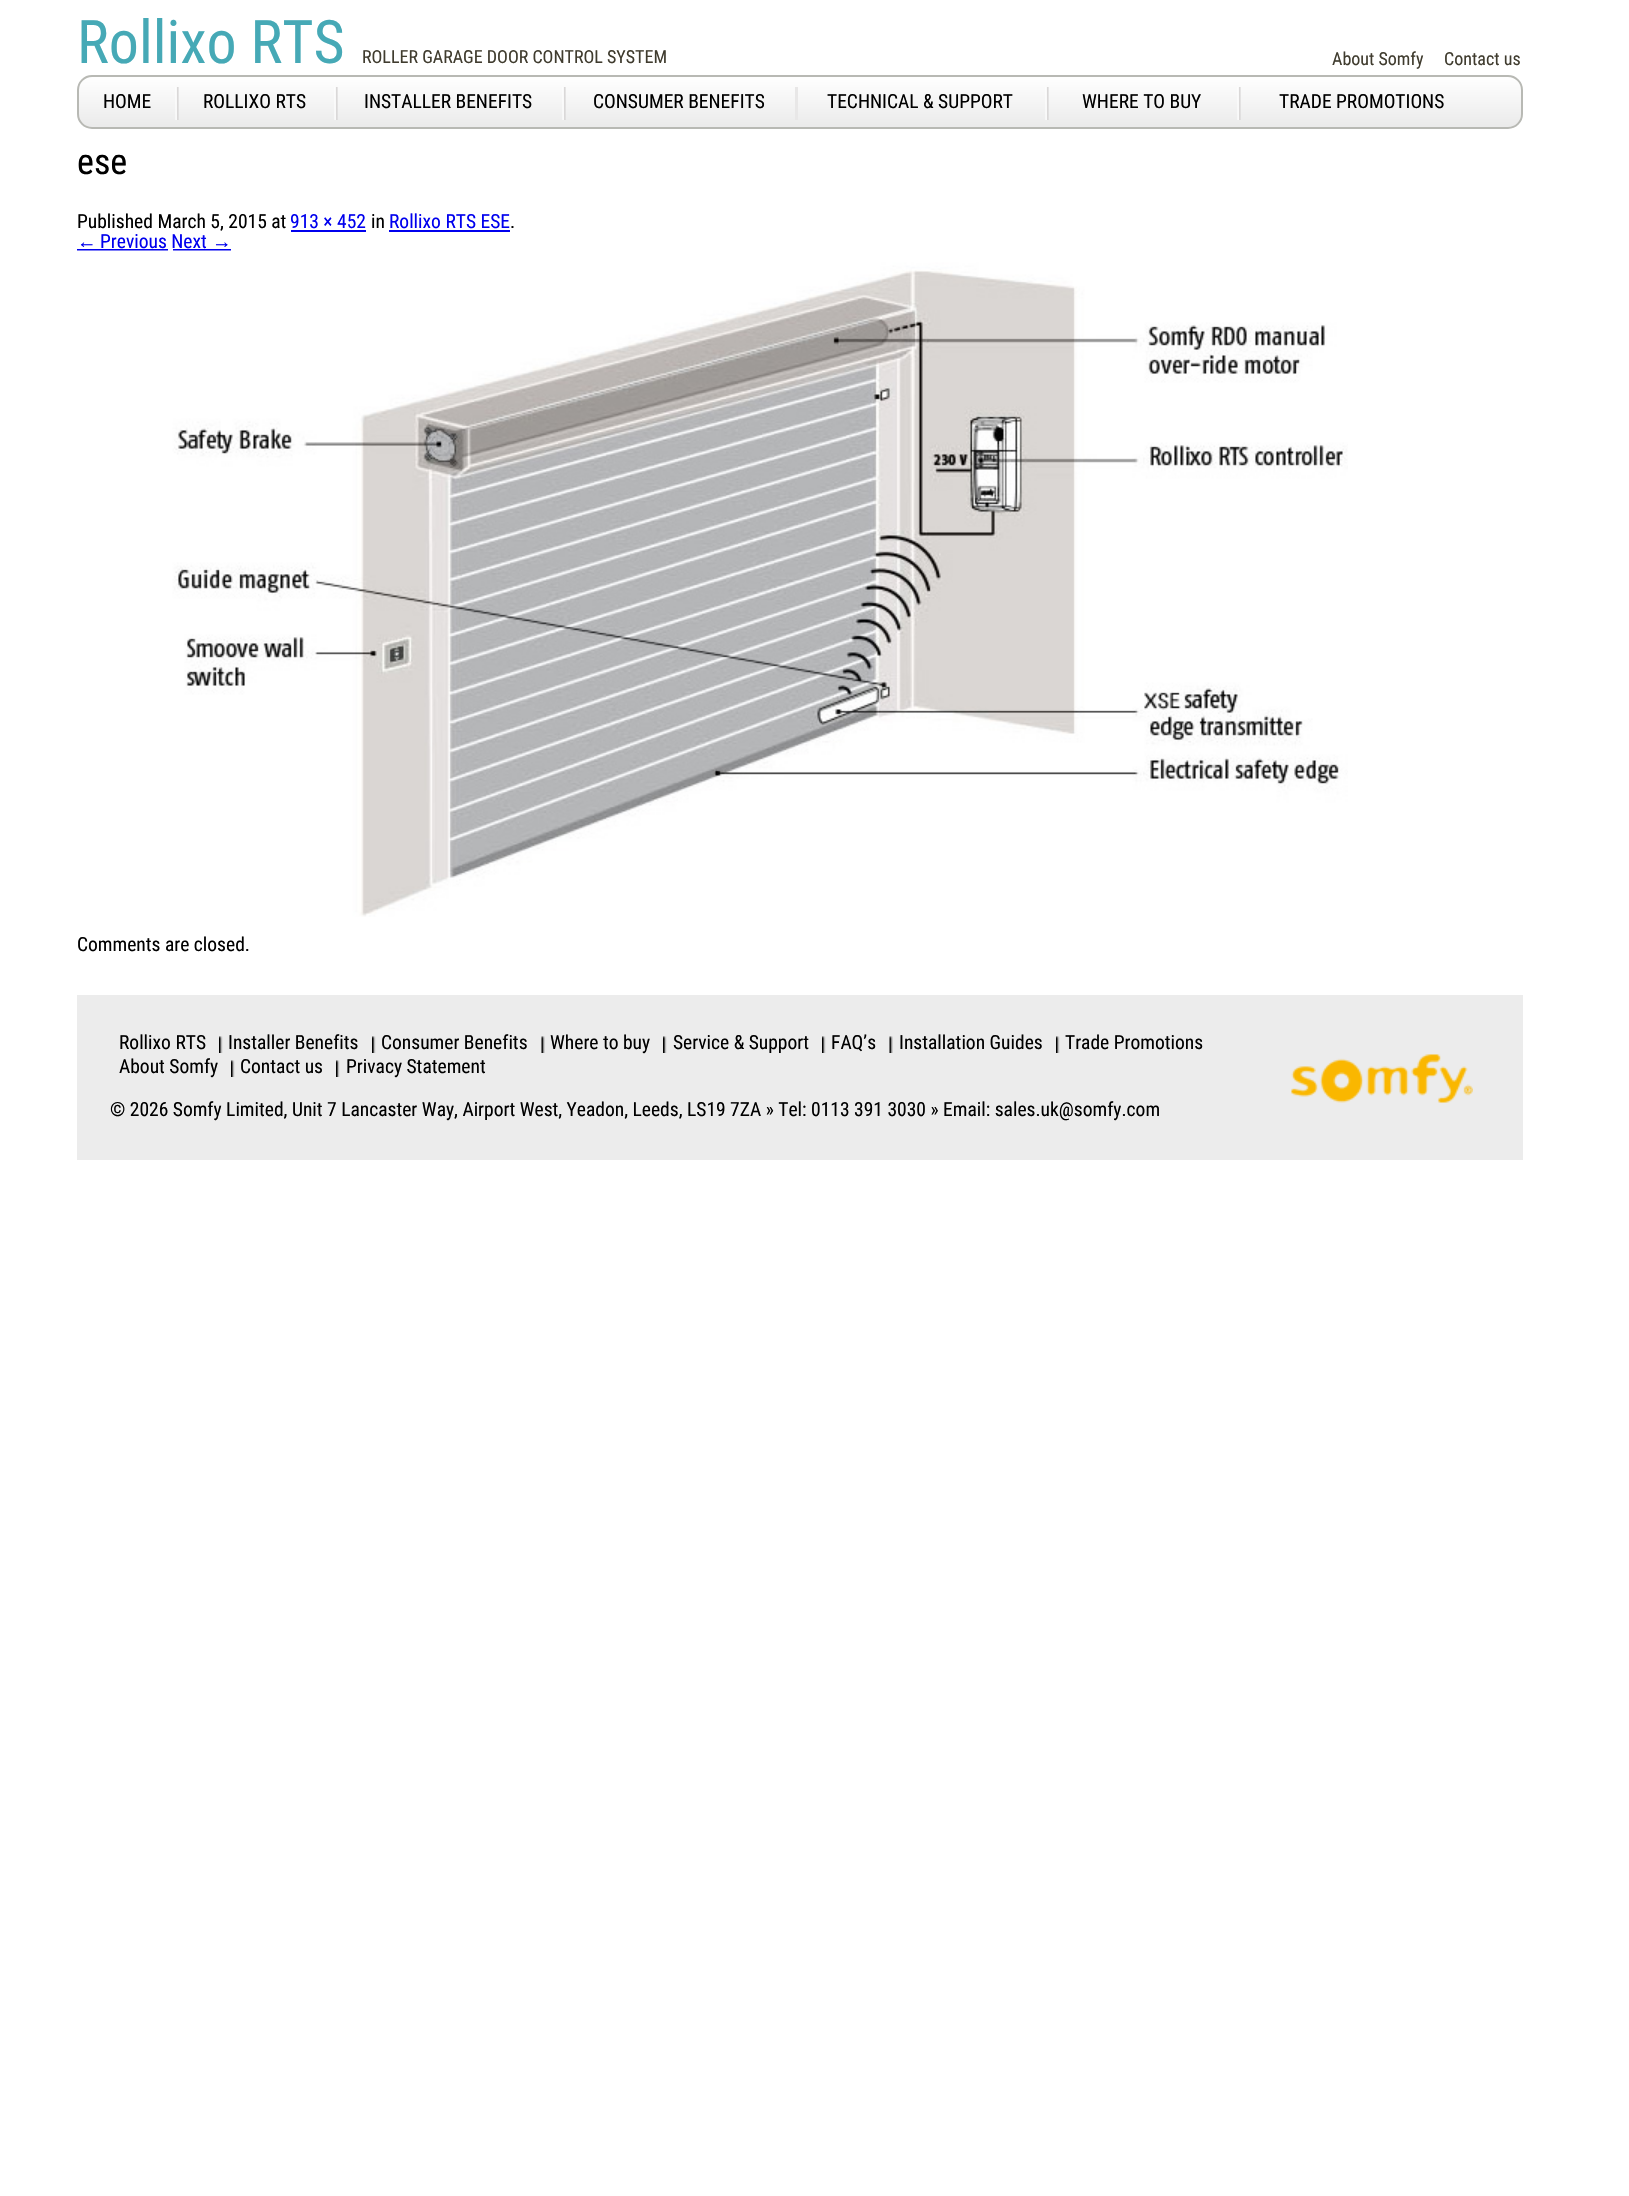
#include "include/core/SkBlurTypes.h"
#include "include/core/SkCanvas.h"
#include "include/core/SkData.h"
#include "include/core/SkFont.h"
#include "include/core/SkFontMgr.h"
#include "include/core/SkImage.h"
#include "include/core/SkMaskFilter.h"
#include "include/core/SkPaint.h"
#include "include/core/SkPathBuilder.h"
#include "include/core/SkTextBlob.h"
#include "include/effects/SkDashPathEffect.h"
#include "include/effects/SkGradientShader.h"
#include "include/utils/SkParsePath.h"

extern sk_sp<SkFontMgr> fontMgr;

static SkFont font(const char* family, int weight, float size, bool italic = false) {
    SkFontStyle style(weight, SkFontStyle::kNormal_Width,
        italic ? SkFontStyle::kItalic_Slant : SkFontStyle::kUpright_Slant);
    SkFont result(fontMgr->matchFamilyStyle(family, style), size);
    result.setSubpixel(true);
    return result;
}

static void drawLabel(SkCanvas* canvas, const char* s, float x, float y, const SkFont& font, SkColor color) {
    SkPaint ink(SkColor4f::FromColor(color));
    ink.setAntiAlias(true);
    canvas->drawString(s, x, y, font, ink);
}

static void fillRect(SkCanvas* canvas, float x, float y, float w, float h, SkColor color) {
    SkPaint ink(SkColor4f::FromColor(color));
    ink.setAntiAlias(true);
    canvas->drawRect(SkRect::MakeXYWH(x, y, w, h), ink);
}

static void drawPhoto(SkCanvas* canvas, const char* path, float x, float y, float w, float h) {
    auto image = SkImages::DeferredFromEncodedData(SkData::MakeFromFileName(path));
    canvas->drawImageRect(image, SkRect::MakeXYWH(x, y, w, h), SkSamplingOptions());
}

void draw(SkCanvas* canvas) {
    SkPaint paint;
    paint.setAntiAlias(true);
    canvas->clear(0xFFFFFFFF);
    SkFont font1 = font("Roboto Condensed", 400, 60);
    drawLabel(canvas, "Rollixo RTS", 77, 63, font1, 0xFF46A9B6);
    SkFont font2 = font("Roboto Condensed", 400, 18);
    drawLabel(canvas, "ROLLER GARAGE DOOR CONTROL SYSTEM", 362, 63, font2, 0xFF403C2F);
    drawLabel(canvas, "About Somfy", 1332, 65, font2, 0xFF403C2F);
    drawLabel(canvas, "Contact us", 1444, 65, font2, 0xFF403C2F);
    {
        const SkColor colors[] = {0xFFFFFFFF, 0xFFEAEAEA};
        const float stops[] = {0, 1};
        const SkPoint ends[] = {{800, 76}, {800, 128}};
        paint.setShader(SkGradientShader::MakeLinear(ends, colors, stops, 2, SkTileMode::kClamp));
        paint.setAlpha(255);
    }
    canvas->drawRoundRect(SkRect::MakeXYWH(78, 77, 1443, 51), 14, 14, paint);
    paint.setStroke(true);
    paint.setStrokeWidth(2);
    paint.setShader(nullptr);
    paint.setColor(0xFFB8B9B4);
    canvas->drawRoundRect(SkRect::MakeXYWH(78, 76, 1444, 52), 14, 14, paint);
    SkFont font3 = font("Roboto Condensed", 400, 19.5f);
    drawLabel(canvas, "HOME", 103, 108, font3, 0xFF000000);
    drawPhoto(canvas, "assets/img1.png", 175, 87, 4, 33);
    drawLabel(canvas, "ROLLIXO RTS", 203, 108, font3, 0xFF000000);
    drawPhoto(canvas, "assets/img1.png", 334, 87, 4, 33);
    drawLabel(canvas, "INSTALLER BENEFITS", 364, 108, font3, 0xFF000000);
    drawPhoto(canvas, "assets/img1.png", 562, 87, 4, 33);
    drawLabel(canvas, "CONSUMER BENEFITS", 593, 108, font3, 0xFF000000);
    fillRect(canvas, 795, 87, 3, 33, 0xFFE8E7E7);
    drawLabel(canvas, "TECHNICAL & SUPPORT", 827, 108, font3, 0xFF000000);
    drawPhoto(canvas, "assets/img1.png", 1045, 87, 4, 33);
    drawLabel(canvas, "WHERE TO BUY", 1082, 108, font3, 0xFF000000);
    drawPhoto(canvas, "assets/img1.png", 1237, 87, 4, 33);
    drawLabel(canvas, "TRADE PROMOTIONS", 1279, 108, font3, 0xFF000000);
    SkFont font4 = font("Roboto Condensed", 400, 36);
    drawLabel(canvas, "ese", 77, 174, font4, 0xFF000000);
    drawLabel(canvas, "Published March 5, 2015 at", 77, 228, font3, 0xFF000000);
    drawLabel(canvas, "913 × 452", 290, 228, font3, 0xFF0000EE);
    fillRect(canvas, 291, 230, 75, 2, 0xFF0000EE);
    drawLabel(canvas, "in", 371, 228, font3, 0xFF000000);
    drawLabel(canvas, "Rollixo RTS ESE", 389, 228, font3, 0xFF0000EE);
    fillRect(canvas, 389, 230, 121, 2, 0xFF0000EE);
    drawLabel(canvas, ".", 510, 228, font3, 0xFF000000);
    SkFont font5 = font("Liberation Sans", 400, 19.5f);
    drawLabel(canvas, "←", 77, 248, font5, 0xFF0000EE);
    fillRect(canvas, 77, 249, 91, 2, 0xFF0000EE);
    drawLabel(canvas, "Previous Next", 100, 248, font3, 0xFF0000EE);
    drawLabel(canvas, "→", 212, 248, font5, 0xFF0000EE);
    fillRect(canvas, 173, 249, 58, 2, 0xFF0000EE);
    drawPhoto(canvas, "assets/img2.png", 77, 250, 1271, 667);
    drawLabel(canvas, "Comments are closed.", 77, 951, font3, 0xFF000000);
    fillRect(canvas, 77, 995, 1446, 165, 0xFFECECEC);
    drawLabel(canvas, "Rollixo RTS", 119, 1049, font3, 0xFF000000);
    drawPhoto(canvas, "assets/img3.png", 219, 1036, 4, 17);
    drawLabel(canvas, "Installer Benefits", 228, 1049, font3, 0xFF000000);
    drawPhoto(canvas, "assets/img4.png", 372, 1036, 4, 17);
    drawLabel(canvas, "Consumer Benefits", 381, 1049, font3, 0xFF000000);
    drawPhoto(canvas, "assets/img5.png", 541, 1036, 4, 17);
    drawLabel(canvas, "Where to buy", 550, 1049, font3, 0xFF000000);
    drawPhoto(canvas, "assets/img4.png", 663, 1036, 4, 17);
    drawLabel(canvas, "Service & Support", 673, 1049, font3, 0xFF000000);
    drawPhoto(canvas, "assets/img3.png", 822, 1036, 4, 17);
    drawLabel(canvas, "FAQ’s", 831, 1049, font3, 0xFF000000);
    drawPhoto(canvas, "assets/img6.png", 889, 1036, 4, 17);
    drawLabel(canvas, "Installation Guides", 899, 1049, font3, 0xFF000000);
    drawPhoto(canvas, "assets/img3.png", 1056, 1036, 4, 17);
    drawLabel(canvas, "Trade Promotions", 1065, 1049, font3, 0xFF000000);
    drawLabel(canvas, "About Somfy", 119, 1073, font3, 0xFF000000);
    drawPhoto(canvas, "assets/img3.png", 231, 1060, 4, 17);
    drawLabel(canvas, "Contact us", 240, 1073, font3, 0xFF000000);
    drawPhoto(canvas, "assets/img4.png", 336, 1060, 4, 17);
    drawLabel(canvas, "Privacy Statement", 346, 1073, font3, 0xFF000000);
    drawLabel(canvas, "© 2026 Somfy Limited, Unit 7 Lancaster Way, Airport West, Yeadon, Leeds, LS19 7ZA » Tel: 0113 391 3030 » Email: sales.uk@somfy.com", 110, 1116, font3, 0xFF000000);
    drawPhoto(canvas, "assets/img7.png", 1291, 1054, 182, 49);
}
